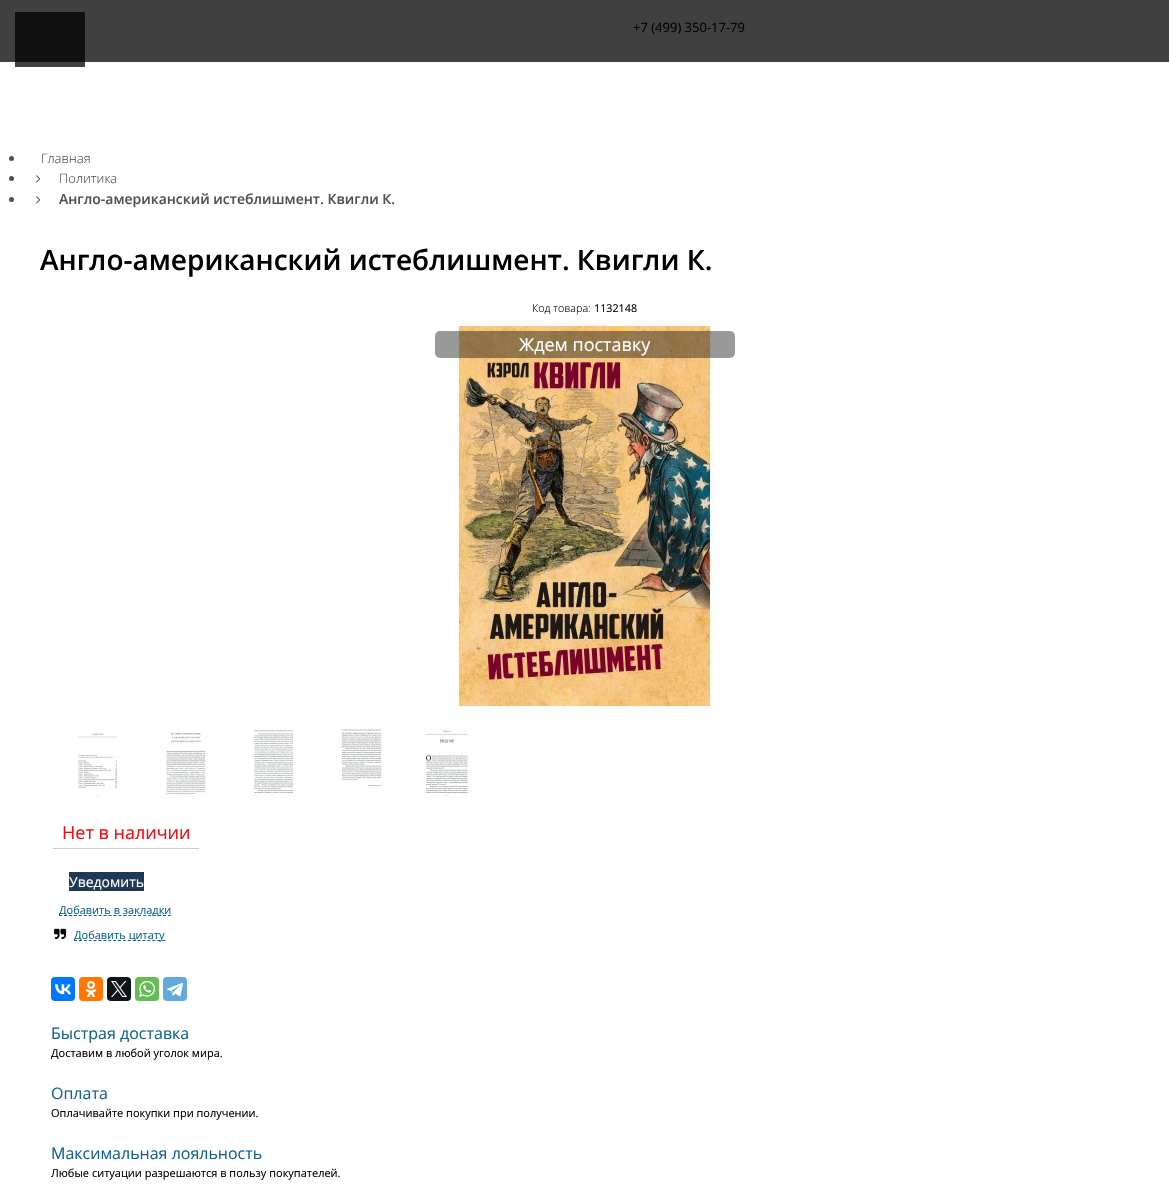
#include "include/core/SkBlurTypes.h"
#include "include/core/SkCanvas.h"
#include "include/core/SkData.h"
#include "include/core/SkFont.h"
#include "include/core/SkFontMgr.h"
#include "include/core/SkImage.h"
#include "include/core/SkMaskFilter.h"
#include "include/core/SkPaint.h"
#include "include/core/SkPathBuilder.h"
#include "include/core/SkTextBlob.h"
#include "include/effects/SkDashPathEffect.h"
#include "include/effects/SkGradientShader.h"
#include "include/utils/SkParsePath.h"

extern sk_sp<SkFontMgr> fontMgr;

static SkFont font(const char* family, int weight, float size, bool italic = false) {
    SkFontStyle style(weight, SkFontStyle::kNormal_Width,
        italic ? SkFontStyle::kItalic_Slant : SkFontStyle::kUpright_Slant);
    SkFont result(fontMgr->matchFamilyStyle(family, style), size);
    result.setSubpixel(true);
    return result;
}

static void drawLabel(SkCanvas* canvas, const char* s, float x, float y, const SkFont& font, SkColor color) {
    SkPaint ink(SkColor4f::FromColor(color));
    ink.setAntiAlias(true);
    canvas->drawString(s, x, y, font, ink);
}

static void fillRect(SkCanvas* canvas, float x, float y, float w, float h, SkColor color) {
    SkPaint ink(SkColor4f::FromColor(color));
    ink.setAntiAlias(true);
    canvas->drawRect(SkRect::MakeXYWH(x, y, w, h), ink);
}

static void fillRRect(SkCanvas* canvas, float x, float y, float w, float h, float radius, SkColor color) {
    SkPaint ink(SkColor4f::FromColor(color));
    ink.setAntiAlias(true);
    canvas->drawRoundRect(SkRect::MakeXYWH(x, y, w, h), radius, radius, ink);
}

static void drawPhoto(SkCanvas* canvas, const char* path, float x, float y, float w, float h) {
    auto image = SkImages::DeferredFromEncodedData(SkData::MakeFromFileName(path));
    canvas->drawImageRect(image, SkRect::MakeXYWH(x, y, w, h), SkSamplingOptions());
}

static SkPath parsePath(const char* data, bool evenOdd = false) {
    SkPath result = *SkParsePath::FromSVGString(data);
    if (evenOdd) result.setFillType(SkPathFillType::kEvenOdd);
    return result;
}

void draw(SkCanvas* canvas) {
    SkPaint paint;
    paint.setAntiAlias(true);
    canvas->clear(0xFFFFFFFF);
    fillRect(canvas, 0, 0, 1169, 62, 0xFF404040);
    fillRect(canvas, 15, 12, 70, 50, 0xFF101010);
    SkFont font1 = font("Open Sans", 400, 13);
    drawLabel(canvas, "+7 (499) 350-17-79", 633, 32, font1, 0xFF000000);
    fillRect(canvas, 15, 62, 70, 5, 0xFF404040);
    paint.setColor(0xFF515050);
    canvas->drawCircle(11.5f, 158.5f, 2.5f, paint);
    SkFont font2 = font("Open Sans", 300, 13);
    drawLabel(canvas, "Главная", 41, 163, font2, 0xFF515050);
    canvas->drawCircle(11.5f, 178.5f, 2.5f, paint);
    drawPhoto(canvas, "assets/img1.png", 36, 175, 5, 8);
    drawLabel(canvas, "Политика", 59, 183, font2, 0xFF515050);
    canvas->drawCircle(11.5f, 199.5f, 2.5f, paint);
    drawPhoto(canvas, "assets/img1.png", 36, 196, 5, 8);
    SkFont font3 = font("Open Sans", 600, 14);
    drawLabel(canvas, "Англо-американский истеблишмент. Квигли К.", 59, 204, font3, 0xFF515050);
    SkFont font4 = font("Open Sans", 600, 28);
    drawLabel(canvas, "Англо-американский истеблишмент. Квигли К.", 40, 270, font4, 0xFF000000);
    SkFont font5 = font("Open Sans", 300, 10.75f);
    drawLabel(canvas, "Код товара:", 532, 312, font5, 0xFF000000);
    SkFont font6 = font("Open Sans", 400, 10.75f);
    drawLabel(canvas, "1132148", 594, 312, font6, 0xFF000000);
    drawPhoto(canvas, "assets/img2.png", 458, 326, 257, 380);
    fillRRect(canvas, 435, 331, 300, 27, 5, 0x66000000);
    SkFont font7 = font("Open Sans", 400, 18);
    drawLabel(canvas, "Ждем поставку", 519, 351, font7, 0xFFFFFFFF);
    drawPhoto(canvas, "assets/img3.png", 77, 733, 40, 64);
    drawPhoto(canvas, "assets/img4.png", 164, 727, 48, 70);
    drawPhoto(canvas, "assets/img5.png", 252, 726, 48, 72);
    drawPhoto(canvas, "assets/img6.png", 339, 726, 48, 63);
    drawPhoto(canvas, "assets/img7.png", 419, 727, 56, 71);
    fillRect(canvas, 53, 848, 146, 1, 0xFFCCCCCC);
    drawLabel(canvas, "Нет в наличии", 62, 839, font7, 0xFFF90808);
    fillRect(canvas, 69, 872, 75, 19, 0xFF1F3853);
    SkFont font8 = font("Open Sans", 400, 14);
    drawLabel(canvas, "Уведомить", 69, 887, font8, 0xFFFFFFFF);
    paint.setStroke(true);
    paint.setStrokeWidth(1);
    paint.setColor(0xFF0D638F);
    paint.setPathEffect(SkDashPathEffect::Make({{3, 1.95f}}, 0));
    canvas->drawPath(parsePath("M59 915.5H171"), paint);
    paint.setPathEffect(nullptr);
    SkFont font9 = font("Open Sans", 400, 11);
    drawLabel(canvas, "Добавить в закладки", 59, 914, font9, 0xFF0D638F);
    drawPhoto(canvas, "assets/img8.png", 54, 928, 13, 11);
    paint.setPathEffect(SkDashPathEffect::Make({{3, 1.89f}}, 0));
    canvas->drawPath(parsePath("M74 940.5H165"), paint);
    paint.setPathEffect(nullptr);
    drawLabel(canvas, "Добавить цитату", 74, 939, font9, 0xFF0D638F);
    fillRRect(canvas, 51, 977, 24, 24, 4, 0xFF0077FF);
    drawPhoto(canvas, "assets/img9.png", 55, 984, 16, 11);
    fillRRect(canvas, 79, 977, 24, 24, 4, 0xFFFF7700);
    drawPhoto(canvas, "assets/img10.png", 85, 981, 12, 16);
    fillRRect(canvas, 107, 977, 24, 24, 4, 0xFF0F1419);
    drawPhoto(canvas, "assets/img11.png", 111, 981, 16, 16);
    fillRRect(canvas, 135, 977, 24, 24, 4, 0xFF65BC54);
    drawPhoto(canvas, "assets/img12.png", 139, 981, 16, 16);
    fillRRect(canvas, 163, 977, 24, 24, 4, 0xFF64A9DC);
    drawPhoto(canvas, "assets/img13.png", 167, 983, 16, 14);
    SkFont font10 = font("Open Sans", 400, 16);
    drawLabel(canvas, "Быстрая доставка", 51, 1039, font10, 0xFF0D638F);
    drawLabel(canvas, "Доставим в любой уголок мира.", 51, 1057, font9, 0xFF000000);
    drawLabel(canvas, "Оплата", 51, 1099, font10, 0xFF0D638F);
    drawLabel(canvas, "Оплачивайте покупки при получении.", 51, 1117, font9, 0xFF000000);
    drawLabel(canvas, "Максимальная лояльность", 51, 1159, font10, 0xFF0D638F);
    drawLabel(canvas, "Любые ситуации разрешаются в пользу покупателей.", 51, 1177, font9, 0xFF000000);
}
